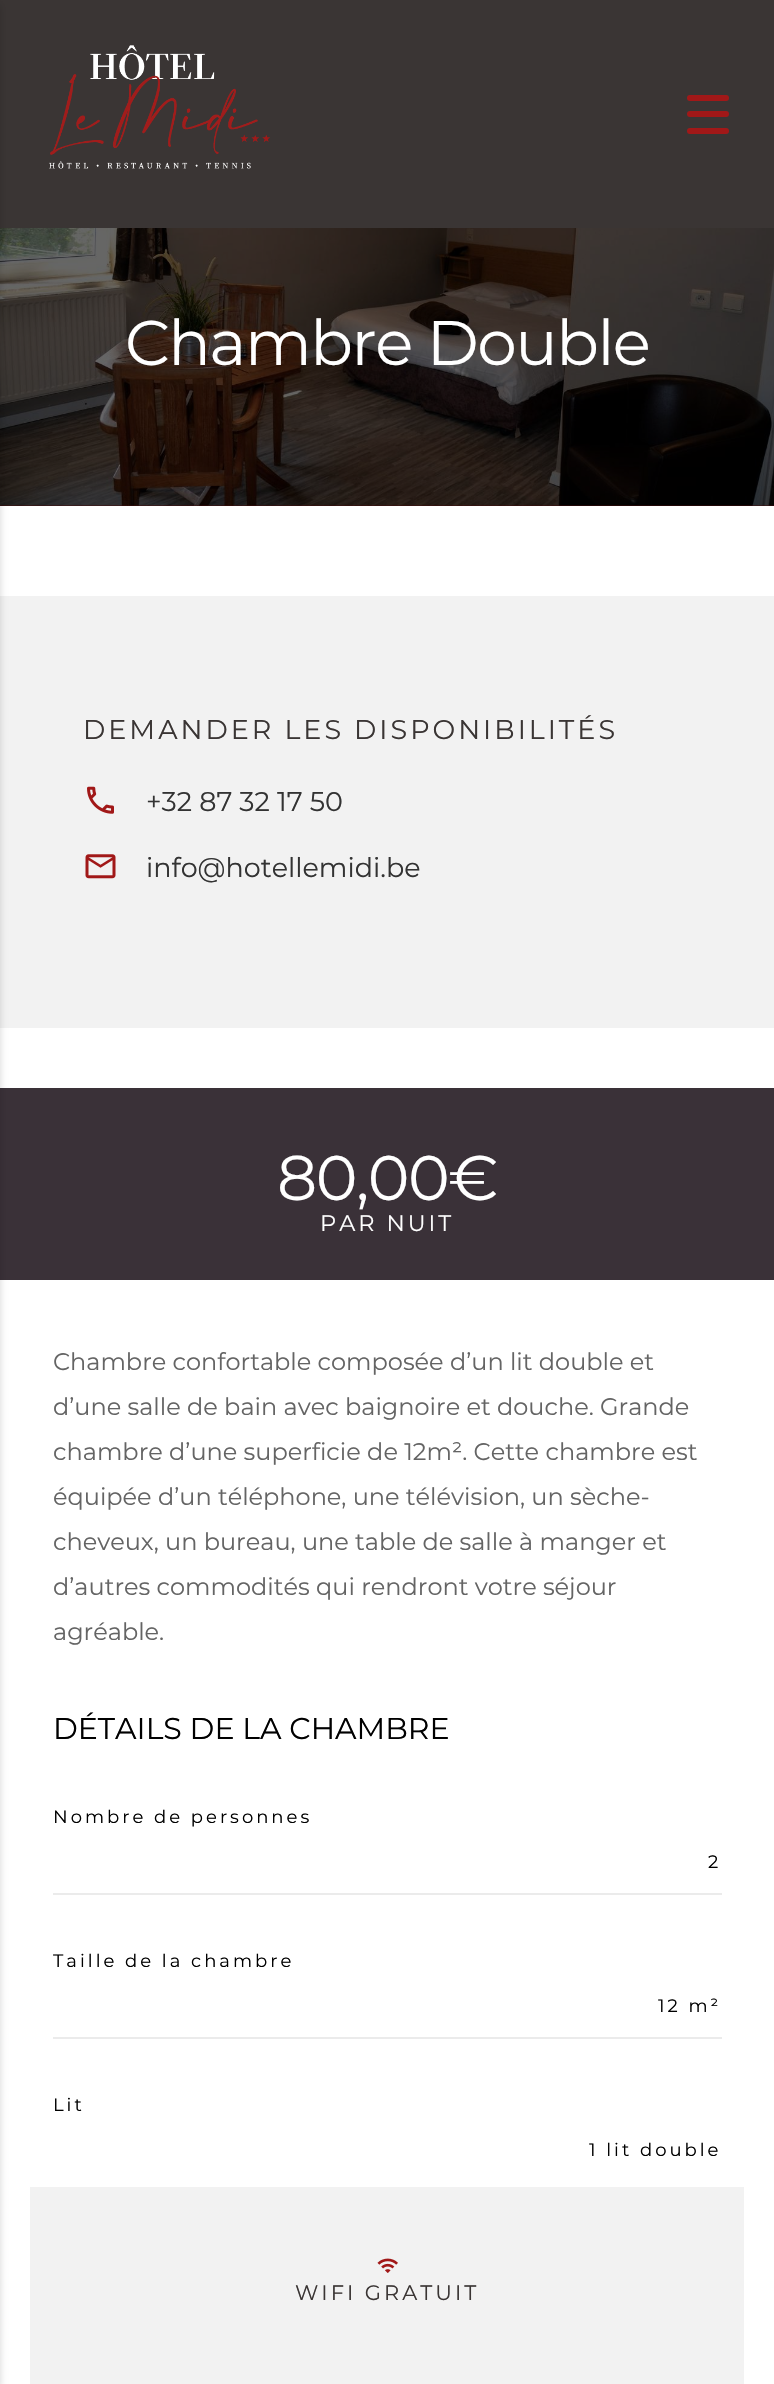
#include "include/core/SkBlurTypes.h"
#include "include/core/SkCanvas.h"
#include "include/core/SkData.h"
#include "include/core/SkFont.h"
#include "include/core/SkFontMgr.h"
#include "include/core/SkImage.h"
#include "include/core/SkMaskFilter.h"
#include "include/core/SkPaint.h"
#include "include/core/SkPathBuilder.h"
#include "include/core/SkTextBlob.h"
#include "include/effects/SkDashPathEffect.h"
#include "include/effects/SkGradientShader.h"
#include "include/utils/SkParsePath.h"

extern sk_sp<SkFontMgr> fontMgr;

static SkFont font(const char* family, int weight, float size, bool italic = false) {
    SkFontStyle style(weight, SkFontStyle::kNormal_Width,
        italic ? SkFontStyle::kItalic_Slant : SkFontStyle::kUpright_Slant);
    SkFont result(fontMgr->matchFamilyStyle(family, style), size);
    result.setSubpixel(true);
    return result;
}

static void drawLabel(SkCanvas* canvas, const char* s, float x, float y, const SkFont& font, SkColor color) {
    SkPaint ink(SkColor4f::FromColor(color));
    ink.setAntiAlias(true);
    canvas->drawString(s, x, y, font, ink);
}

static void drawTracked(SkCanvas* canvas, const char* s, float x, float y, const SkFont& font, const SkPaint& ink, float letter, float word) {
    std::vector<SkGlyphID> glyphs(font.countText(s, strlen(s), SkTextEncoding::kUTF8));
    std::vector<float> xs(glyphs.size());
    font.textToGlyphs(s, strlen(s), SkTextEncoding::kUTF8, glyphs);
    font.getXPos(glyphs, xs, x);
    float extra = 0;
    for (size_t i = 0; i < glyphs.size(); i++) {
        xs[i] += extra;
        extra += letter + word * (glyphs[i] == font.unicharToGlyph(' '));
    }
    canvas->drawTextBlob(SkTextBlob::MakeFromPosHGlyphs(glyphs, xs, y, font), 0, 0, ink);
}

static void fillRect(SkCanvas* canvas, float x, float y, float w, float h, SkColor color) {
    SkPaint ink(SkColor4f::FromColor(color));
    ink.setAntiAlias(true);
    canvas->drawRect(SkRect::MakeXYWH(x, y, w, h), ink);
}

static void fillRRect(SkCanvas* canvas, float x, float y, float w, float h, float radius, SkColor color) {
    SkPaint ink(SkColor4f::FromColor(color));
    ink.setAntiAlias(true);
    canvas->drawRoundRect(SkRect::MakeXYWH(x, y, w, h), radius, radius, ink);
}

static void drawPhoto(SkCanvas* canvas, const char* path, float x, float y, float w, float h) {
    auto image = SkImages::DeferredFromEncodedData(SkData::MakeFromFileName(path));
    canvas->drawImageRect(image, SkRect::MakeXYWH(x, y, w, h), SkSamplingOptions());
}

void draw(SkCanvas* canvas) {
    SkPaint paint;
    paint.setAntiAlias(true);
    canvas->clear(0xFFFFFFFF);
    fillRect(canvas, 0, 0, 774, 228, 0xFF3A3534);
    drawPhoto(canvas, "assets/img1.png", 49, 45, 221, 124);
    fillRRect(canvas, 687, 95, 42, 6, 3, 0xFFA11818);
    fillRRect(canvas, 687, 111, 42, 6, 3, 0xFFA11818);
    fillRRect(canvas, 687, 128, 42, 6, 3, 0xFFA11818);
    fillRect(canvas, 0, 505, 774, 1, 0xFF400A0A);
    drawPhoto(canvas, "assets/img2.png", 0, 228, 774, 278);
    fillRect(canvas, 0, 596, 774, 432, 0xFFF2F2F2);
    fillRect(canvas, 0, 1088, 774, 192, 0xFF3A3138);
    paint.setColor(0x33000000);
    paint.setMaskFilter(SkMaskFilter::MakeBlur(kNormal_SkBlurStyle, 4));
    canvas->drawRect(SkRect::MakeXYWH(-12, 5, 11, 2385), paint);
    paint.setMaskFilter(nullptr);
    SkFont font1 = font("Montserrat", 400, 63);
    paint.setColor(0xFFFFFFFF);
    drawTracked(canvas, "Chambre Double", 125, 365, font1, paint, -1.5f, 0);
    SkFont font2 = font("Montserrat", 400, 27);
    paint.setColor(0xFF3A3534);
    drawTracked(canvas, "DEMANDER LES DISPONIBILITÉS", 83, 739, font2, paint, 3, 0);
    drawPhoto(canvas, "assets/img3.png", 87, 786, 27, 28);
    drawLabel(canvas, "+32 87 32 17 50", 146, 811, font2, 0xFF333333);
    drawPhoto(canvas, "assets/img4.png", 85, 854, 31, 25);
    drawLabel(canvas, "info@hotellemidi.be", 146, 877, font2, 0xFF333333);
    paint.setColor(0xFFFFFFFF);
    drawTracked(canvas, "80,00€", 277, 1200, font1, paint, -1.5f, 0);
    SkFont font3 = font("Montserrat", 400, 22.5f);
    drawTracked(canvas, "PAR NUIT", 320, 1231, font3, paint, 3, 0);
    SkFont font4 = font("Montserrat", 400, 24);
    drawLabel(canvas, "Chambre confortable composée d’un lit double et", 53, 1370, font4, 0xFF646464);
    drawLabel(canvas, "d’une salle de bain avec baignoire et douche. Grande", 53, 1415, font4, 0xFF646464);
    drawLabel(canvas, "chambre d’une superficie de 12m². Cette chambre est", 53, 1460, font4, 0xFF646464);
    drawLabel(canvas, "équipée d’un téléphone, une télévision, un sèche-", 53, 1505, font4, 0xFF646464);
    drawLabel(canvas, "cheveux, un bureau, une table de salle à manger et", 53, 1550, font4, 0xFF646464);
    drawLabel(canvas, "d’autres commodités qui rendront votre séjour", 53, 1595, font4, 0xFF646464);
    drawLabel(canvas, "agréable.", 53, 1640, font4, 0xFF646464);
    SkFont font5 = font("Montserrat", 400, 30);
    drawLabel(canvas, "DÉTAILS DE LA CHAMBRE", 53, 1739, font5, 0xFF000000);
    SkFont font6 = font("Montserrat", 400, 18);
    paint.setColor(0xFF000000);
    drawTracked(canvas, "Nombre de personnes", 53, 1823, font6, paint, 3, 0);
    drawTracked(canvas, "2", 708, 1868, font6, paint, 3, 0);
    fillRect(canvas, 53, 1893, 669, 2, 0xFFEBEBEB);
    drawTracked(canvas, "Taille de la chambre", 53, 1967, font6, paint, 3, 0);
    drawTracked(canvas, "12 m²", 658, 2012, font6, paint, 3, 0);
    fillRect(canvas, 53, 2037, 669, 2, 0xFFEBEBEB);
    drawTracked(canvas, "Lit", 53, 2111, font6, paint, 3, 0);
    drawTracked(canvas, "1 lit double", 589, 2156, font6, paint, 3, 0);
    fillRect(canvas, 30, 2187, 714, 197, 0xFFF2F2F2);
    drawPhoto(canvas, "assets/img5.png", 377, 2258, 21, 15);
    SkFont font7 = font("Montserrat", 400, 21);
    paint.setColor(0xFF3A3534);
    drawTracked(canvas, "WIFI GRATUIT", 295, 2300, font7, paint, 3, 0);
}
